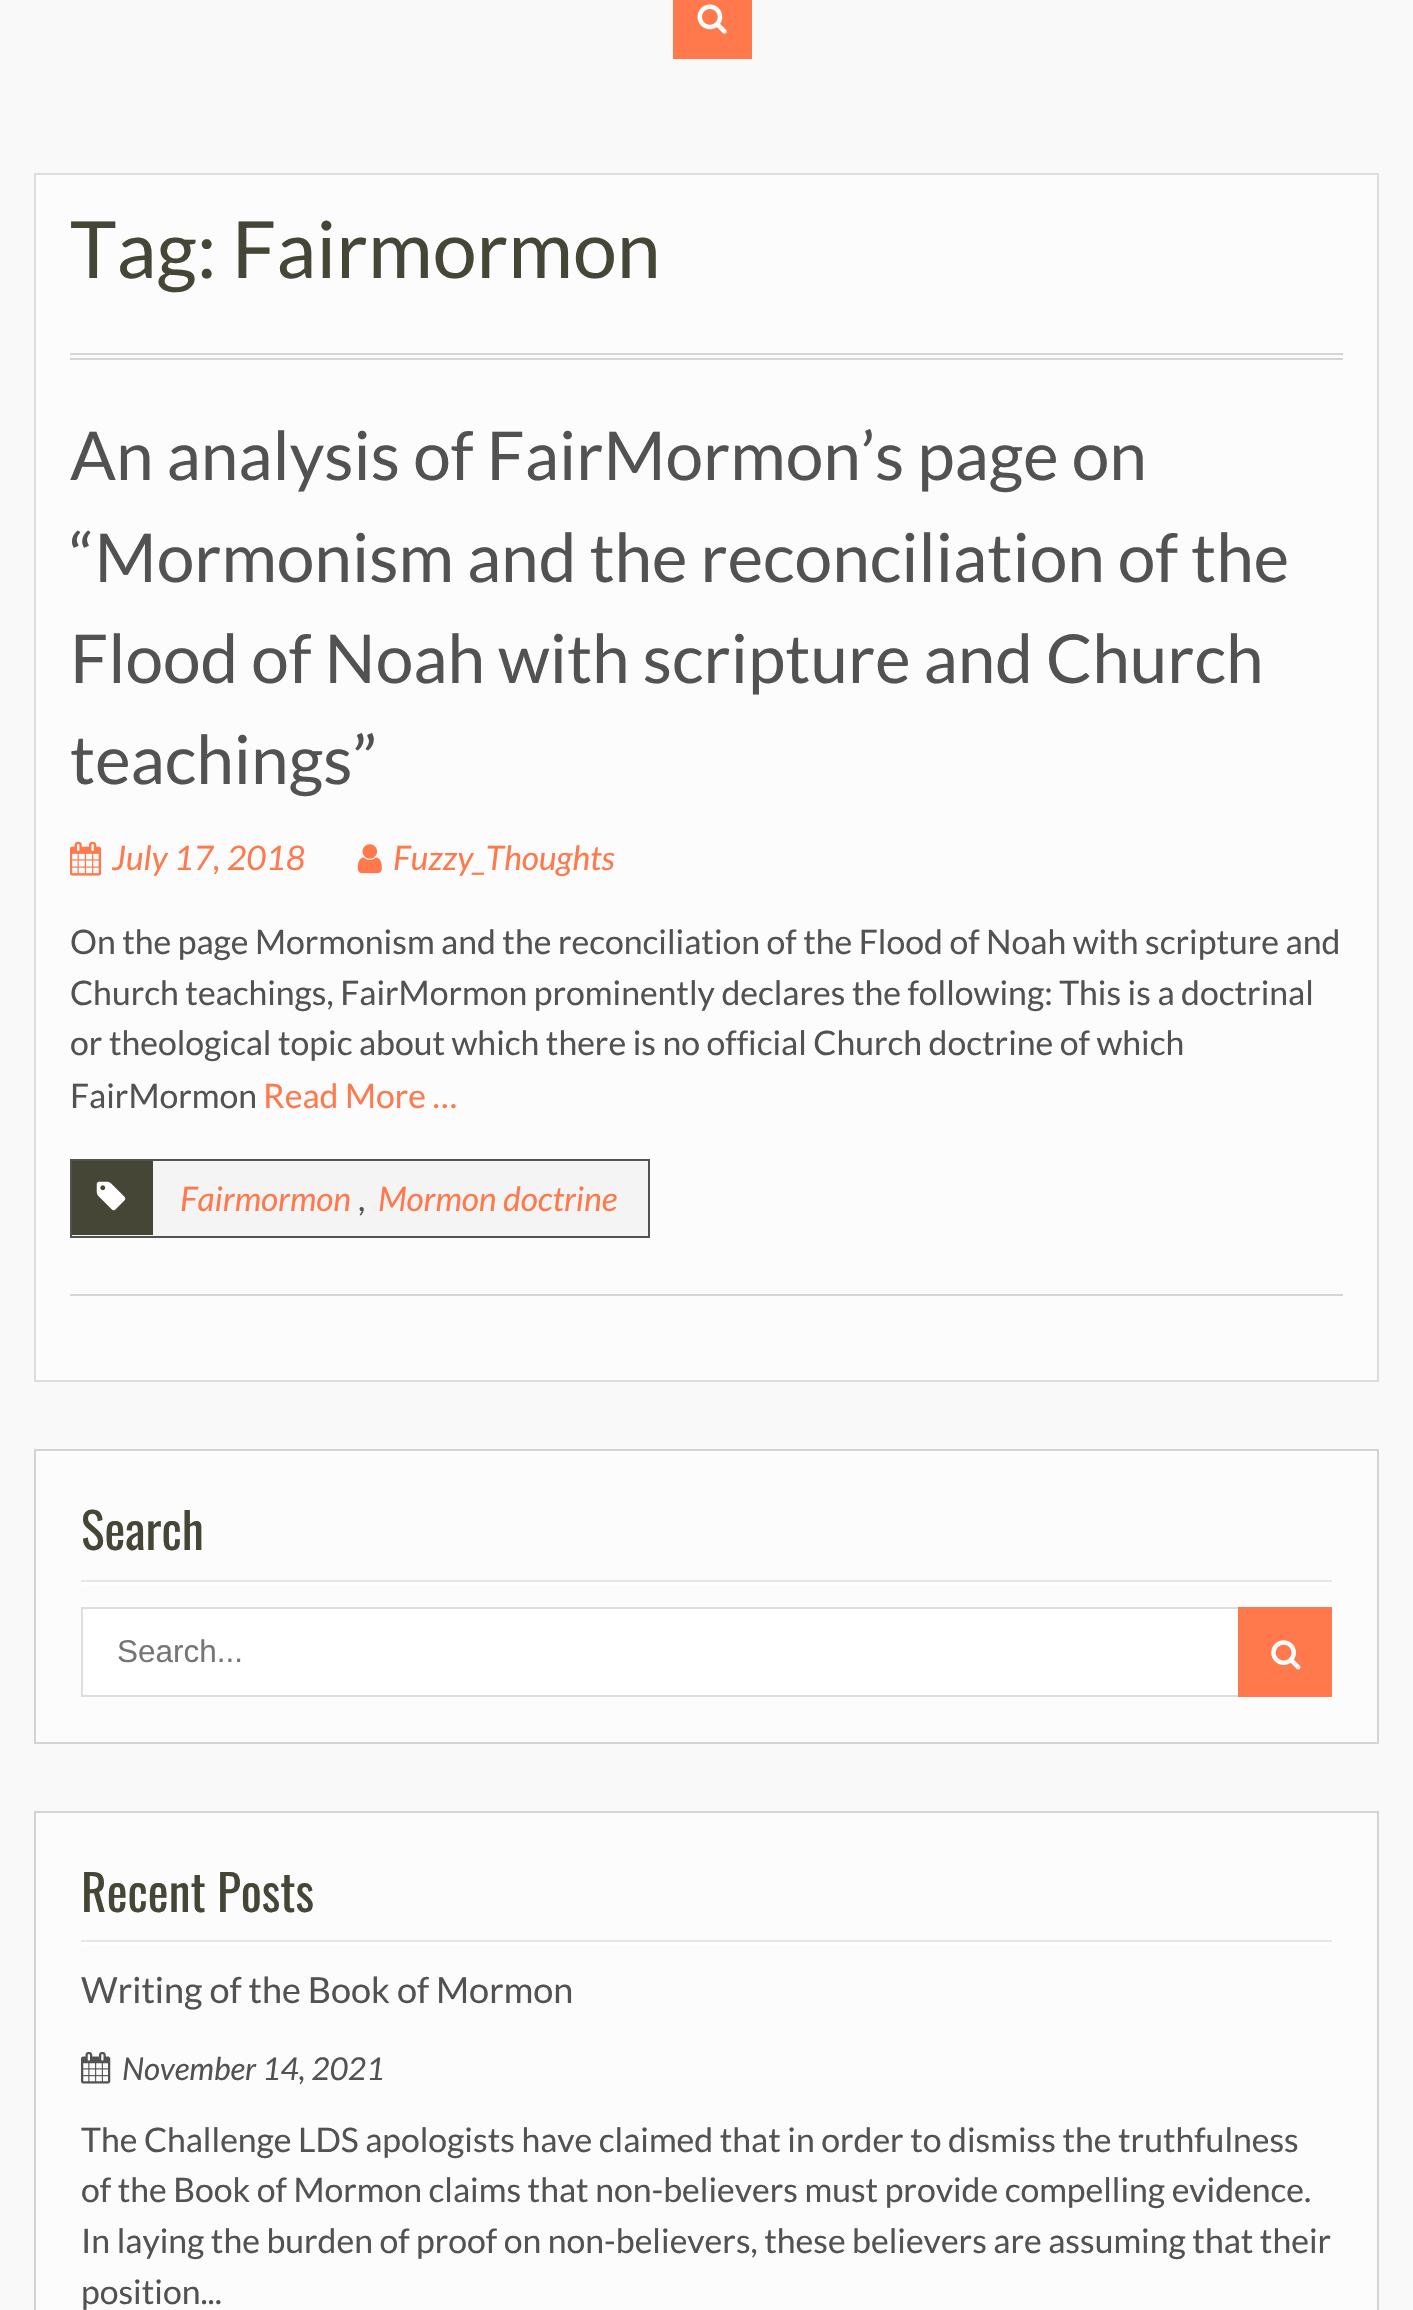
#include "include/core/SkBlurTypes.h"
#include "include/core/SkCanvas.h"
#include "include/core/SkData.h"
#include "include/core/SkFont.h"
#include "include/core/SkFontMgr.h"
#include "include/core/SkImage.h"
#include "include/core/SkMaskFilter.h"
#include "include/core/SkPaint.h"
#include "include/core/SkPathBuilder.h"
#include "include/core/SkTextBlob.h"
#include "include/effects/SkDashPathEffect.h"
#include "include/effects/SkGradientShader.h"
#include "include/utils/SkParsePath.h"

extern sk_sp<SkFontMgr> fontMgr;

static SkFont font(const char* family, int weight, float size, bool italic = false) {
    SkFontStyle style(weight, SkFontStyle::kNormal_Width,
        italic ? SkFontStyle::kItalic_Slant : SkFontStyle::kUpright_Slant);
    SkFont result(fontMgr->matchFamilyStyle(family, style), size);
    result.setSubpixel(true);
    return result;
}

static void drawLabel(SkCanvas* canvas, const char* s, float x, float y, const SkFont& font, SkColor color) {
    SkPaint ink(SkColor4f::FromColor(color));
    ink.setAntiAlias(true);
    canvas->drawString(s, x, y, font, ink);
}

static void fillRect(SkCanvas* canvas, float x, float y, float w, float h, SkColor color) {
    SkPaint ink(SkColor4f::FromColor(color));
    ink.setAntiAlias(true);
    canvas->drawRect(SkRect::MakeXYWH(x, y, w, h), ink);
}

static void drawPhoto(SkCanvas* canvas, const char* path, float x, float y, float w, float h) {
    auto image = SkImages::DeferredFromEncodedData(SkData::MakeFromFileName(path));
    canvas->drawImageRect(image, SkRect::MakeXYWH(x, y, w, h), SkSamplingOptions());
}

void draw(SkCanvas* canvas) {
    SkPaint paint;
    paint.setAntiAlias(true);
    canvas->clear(0xFFF9F9F9);
    fillRect(canvas, 673, 0, 79, 59, 0xFFFF794C);
    drawPhoto(canvas, "assets/img1.png", 697, 4, 30, 30);
    paint.setColor(0xFFFCFCFC);
    canvas->drawRect(SkRect::MakeXYWH(35, 174, 1343, 1207), paint);
    paint.setStroke(true);
    paint.setStrokeWidth(2);
    paint.setColor(0xFFDDDDDD);
    canvas->drawRect(SkRect::MakeXYWH(35, 174, 1343, 1207), paint);
    fillRect(canvas, 70, 353, 1273, 2, 0xFFD6D5D5);
    fillRect(canvas, 70, 358, 1273, 2, 0xFFD6D5D5);
    SkFont font1 = font("Lato", 400, 78.75f);
    drawLabel(canvas, "Tag: Fairmormon", 70, 278, font1, 0xFF464637);
    fillRect(canvas, 70, 1294, 1273, 2, 0xFFD6D5D5);
    SkFont font2 = font("Lato", 400, 67.5f);
    drawLabel(canvas, "An analysis of FairMormon’s page on", 70, 480, font2, 0xFF525252);
    drawLabel(canvas, "“Mormonism and the reconciliation of the", 70, 582, font2, 0xFF525252);
    drawLabel(canvas, "Flood of Noah with scripture and Church", 70, 683, font2, 0xFF525252);
    drawLabel(canvas, "teachings”", 70, 784, font2, 0xFF525252);
    drawPhoto(canvas, "assets/img2.png", 70, 841, 32, 35);
    SkFont font3 = font("Lato", 400, 33.75f, true);
    drawLabel(canvas, "July 17, 2018", 112, 870, font3, 0xFFFF794C);
    drawPhoto(canvas, "assets/img3.png", 357, 844, 25, 30);
    drawLabel(canvas, "Fuzzy_Thoughts", 393, 870, font3, 0xFFFF794C);
    SkFont font4 = font("Lato", 400, 33.75f);
    drawLabel(canvas, "On the page Mormonism and the reconciliation of the Flood of Noah with scripture and", 70, 954, font4, 0xFF525252);
    drawLabel(canvas, "Church teachings, FairMormon prominently declares the following: This is a doctrinal", 70, 1005, font4, 0xFF525252);
    drawLabel(canvas, "or theological topic about which there is no official Church doctrine of which", 70, 1055, font4, 0xFF525252);
    drawLabel(canvas, "FairMormon", 70, 1108, font4, 0xFF525252);
    drawLabel(canvas, "Read More …", 263, 1108, font4, 0xFFFF794C);
    paint.setStroke(false);
    paint.setColor(0xFFF5F4F4);
    canvas->drawRect(SkRect::MakeXYWH(71, 1160, 578, 77), paint);
    paint.setStroke(true);
    paint.setColor(0xFF525252);
    canvas->drawRect(SkRect::MakeXYWH(71, 1160, 578, 77), paint);
    fillRect(canvas, 72, 1161, 81, 74, 0xFF464637);
    drawPhoto(canvas, "assets/img4.png", 96, 1181, 30, 30);
    drawLabel(canvas, "Fairmormon", 180, 1211, font3, 0xFFFF794C);
    drawLabel(canvas, ",", 358, 1211, font4, 0xFF525252);
    drawLabel(canvas, "Mormon doctrine", 378, 1211, font3, 0xFFFF794C);
    paint.setStroke(false);
    paint.setColor(0xFFFCFCFC);
    canvas->drawRect(SkRect::MakeXYWH(35, 1450, 1343, 293), paint);
    paint.setStroke(true);
    paint.setColor(0xFFD4D4D4);
    canvas->drawRect(SkRect::MakeXYWH(35, 1450, 1343, 293), paint);
    SkFont font5 = font("Oswald", 400, 49.5f);
    drawLabel(canvas, "Search", 81, 1550, font5, 0xFF464637);
    fillRect(canvas, 81, 1582, 1251, 3, 0xFFFFFFFF);
    fillRect(canvas, 81, 1580, 1251, 2, 0xFFE6E6E6);
    fillRect(canvas, 83, 1609, 1155, 86, 0xFFFFFFFF);
    paint.setColor(0xFFDDDDDD);
    canvas->drawRect(SkRect::MakeXYWH(82, 1608, 1249, 88), paint);
    SkFont font6 = font("Liberation Sans", 400, 31.5f);
    drawLabel(canvas, "Search...", 117, 1662, font6, 0xFF757575);
    fillRect(canvas, 1238, 1607, 94, 90, 0xFFFF794C);
    drawPhoto(canvas, "assets/img5.png", 1271, 1640, 30, 30);
    paint.setStroke(false);
    paint.setColor(0xFFFCFCFC);
    canvas->drawRect(SkRect::MakeXYWH(35, 1812, 1343, 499), paint);
    paint.setStroke(true);
    paint.setColor(0xFFD4D4D4);
    canvas->drawRect(SkRect::MakeXYWH(35, 1812, 1343, 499), paint);
    drawLabel(canvas, "Recent Posts", 81, 1912, font5, 0xFF464637);
    fillRect(canvas, 81, 1942, 1251, 3, 0xFFFFFFFF);
    fillRect(canvas, 81, 1940, 1251, 2, 0xFFE6E6E6);
    SkFont font7 = font("Lato", 400, 36);
    drawLabel(canvas, "Writing of the Book of Mormon", 81, 2003, font7, 0xFF525252);
    drawPhoto(canvas, "assets/img6.png", 81, 2052, 30, 32);
    SkFont font8 = font("Lato", 400, 31.5f, true);
    drawLabel(canvas, "November 14, 2021", 122, 2080, font8, 0xFF525252);
    drawLabel(canvas, "The Challenge LDS apologists have claimed that in order to dismiss the truthfulness", 81, 2152, font4, 0xFF525252);
    drawLabel(canvas, "of the Book of Mormon claims that non-believers must provide compelling evidence.", 81, 2202, font4, 0xFF525252);
    drawLabel(canvas, "In laying the burden of proof on non-believers, these believers are assuming that their", 81, 2253, font4, 0xFF525252);
    drawLabel(canvas, "position...", 81, 2304, font4, 0xFF525252);
}
